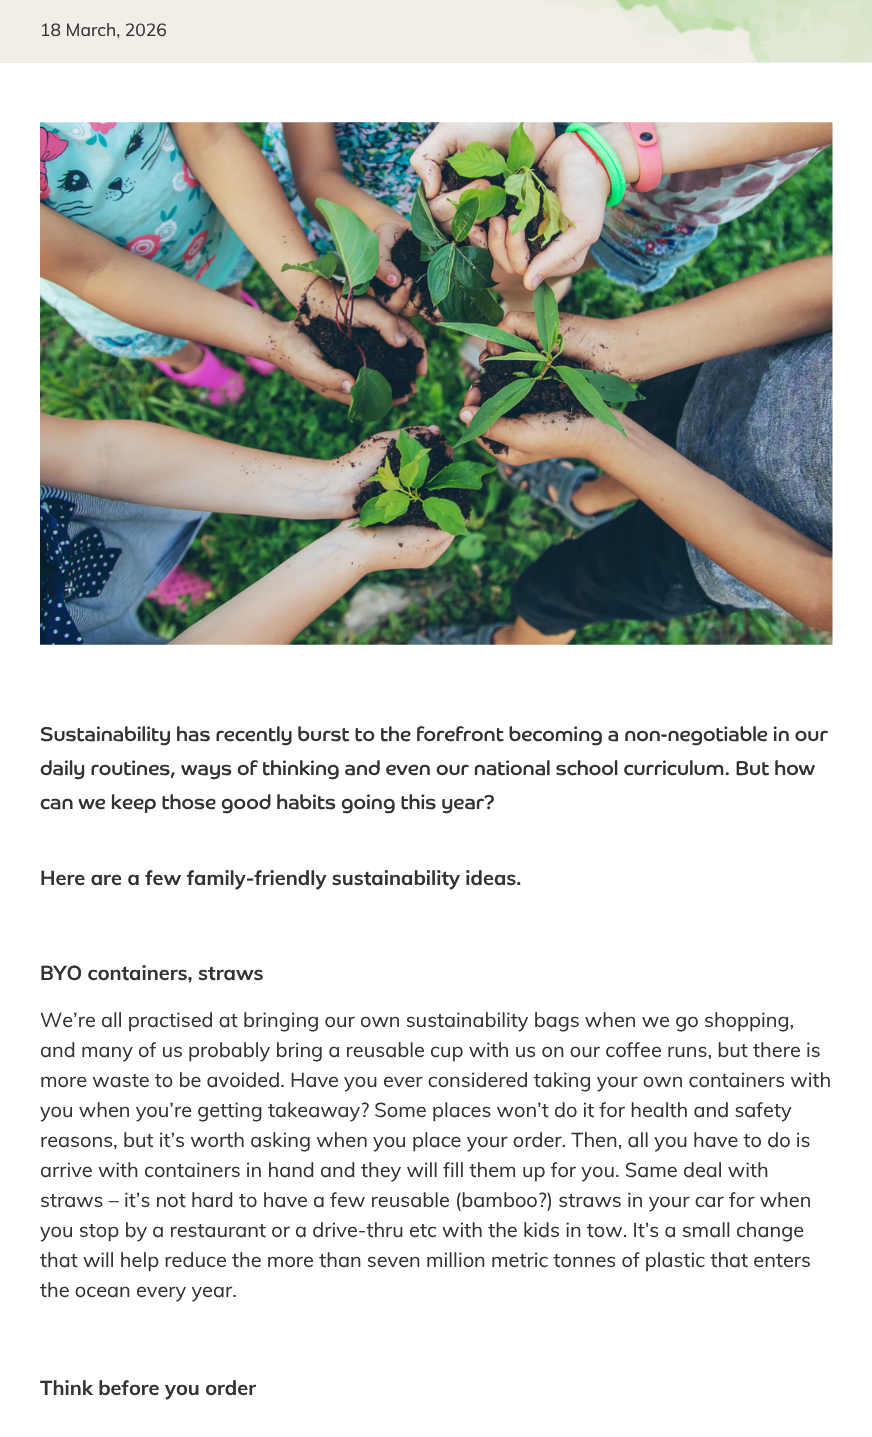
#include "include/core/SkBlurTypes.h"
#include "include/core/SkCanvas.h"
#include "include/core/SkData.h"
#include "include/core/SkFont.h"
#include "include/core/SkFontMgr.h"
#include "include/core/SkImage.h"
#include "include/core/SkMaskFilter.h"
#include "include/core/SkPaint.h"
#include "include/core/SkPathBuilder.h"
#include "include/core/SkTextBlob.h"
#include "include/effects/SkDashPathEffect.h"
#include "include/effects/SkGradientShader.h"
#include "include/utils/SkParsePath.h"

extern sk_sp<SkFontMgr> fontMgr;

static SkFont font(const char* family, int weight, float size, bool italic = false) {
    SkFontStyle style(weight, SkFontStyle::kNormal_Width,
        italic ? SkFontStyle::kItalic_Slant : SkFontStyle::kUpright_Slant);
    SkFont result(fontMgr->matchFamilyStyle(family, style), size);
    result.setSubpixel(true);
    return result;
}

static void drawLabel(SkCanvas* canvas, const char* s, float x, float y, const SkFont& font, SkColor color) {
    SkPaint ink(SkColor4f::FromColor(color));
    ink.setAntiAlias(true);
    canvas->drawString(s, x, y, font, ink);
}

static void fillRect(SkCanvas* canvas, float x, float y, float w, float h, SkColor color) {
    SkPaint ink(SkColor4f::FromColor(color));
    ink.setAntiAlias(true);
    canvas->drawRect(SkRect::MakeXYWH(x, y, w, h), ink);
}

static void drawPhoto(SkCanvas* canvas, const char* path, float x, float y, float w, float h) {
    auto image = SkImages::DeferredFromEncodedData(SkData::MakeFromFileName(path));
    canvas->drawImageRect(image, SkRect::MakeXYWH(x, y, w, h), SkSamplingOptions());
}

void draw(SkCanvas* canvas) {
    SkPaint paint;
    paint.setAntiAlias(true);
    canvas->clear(0xFFFFFFFF);
    fillRect(canvas, 0, 0, 872, 63, 0xFFF1EEE8);
    drawPhoto(canvas, "assets/img1.png", 541, 0, 331, 63);
    SkFont font1 = font("Muli", 400, 17.5f);
    drawLabel(canvas, "18 March, 2026", 40, 36, font1, 0xFF333333);
    drawPhoto(canvas, "assets/img2.png", 40, 122, 793, 523);
    SkFont font2 = font("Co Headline", 400, 20);
    drawLabel(canvas, "Sustainability has recently burst to the forefront becoming a non-negotiable in our", 40, 741, font2, 0xFF333333);
    drawLabel(canvas, "daily routines, ways of thinking and even our national school curriculum. But how", 40, 775, font2, 0xFF333333);
    drawLabel(canvas, "can we keep those good habits going this year?", 40, 809, font2, 0xFF333333);
    SkFont font3 = font("Muli", 700, 20);
    drawLabel(canvas, "Here are a few family-friendly sustainability ideas.", 40, 885, font3, 0xFF333333);
    drawLabel(canvas, "BYO containers, straws", 40, 980, font3, 0xFF333333);
    SkFont font4 = font("Muli", 400, 20);
    drawLabel(canvas, "We’re all practised at bringing our own sustainability bags when we go shopping,", 40, 1027, font4, 0xFF333333);
    drawLabel(canvas, "and many of us probably bring a reusable cup with us on our coffee runs, but there is", 40, 1057, font4, 0xFF333333);
    drawLabel(canvas, "more waste to be avoided. Have you ever considered taking your own containers with", 40, 1087, font4, 0xFF333333);
    drawLabel(canvas, "you when you’re getting takeaway? Some places won’t do it for health and safety", 40, 1117, font4, 0xFF333333);
    drawLabel(canvas, "reasons, but it’s worth asking when you place your order. Then, all you have to do is", 40, 1147, font4, 0xFF333333);
    drawLabel(canvas, "arrive with containers in hand and they will fill them up for you. Same deal with", 40, 1177, font4, 0xFF333333);
    drawLabel(canvas, "straws – it’s not hard to have a few reusable (bamboo?) straws in your car for when", 40, 1207, font4, 0xFF333333);
    drawLabel(canvas, "you stop by a restaurant or a drive-thru etc with the kids in tow. It’s a small change", 40, 1237, font4, 0xFF333333);
    drawLabel(canvas, "that will help reduce the more than seven million metric tonnes of plastic that enters", 40, 1267, font4, 0xFF333333);
    drawLabel(canvas, "the ocean every year.", 40, 1297, font4, 0xFF333333);
    drawLabel(canvas, "Think before you order", 40, 1395, font3, 0xFF333333);
}
